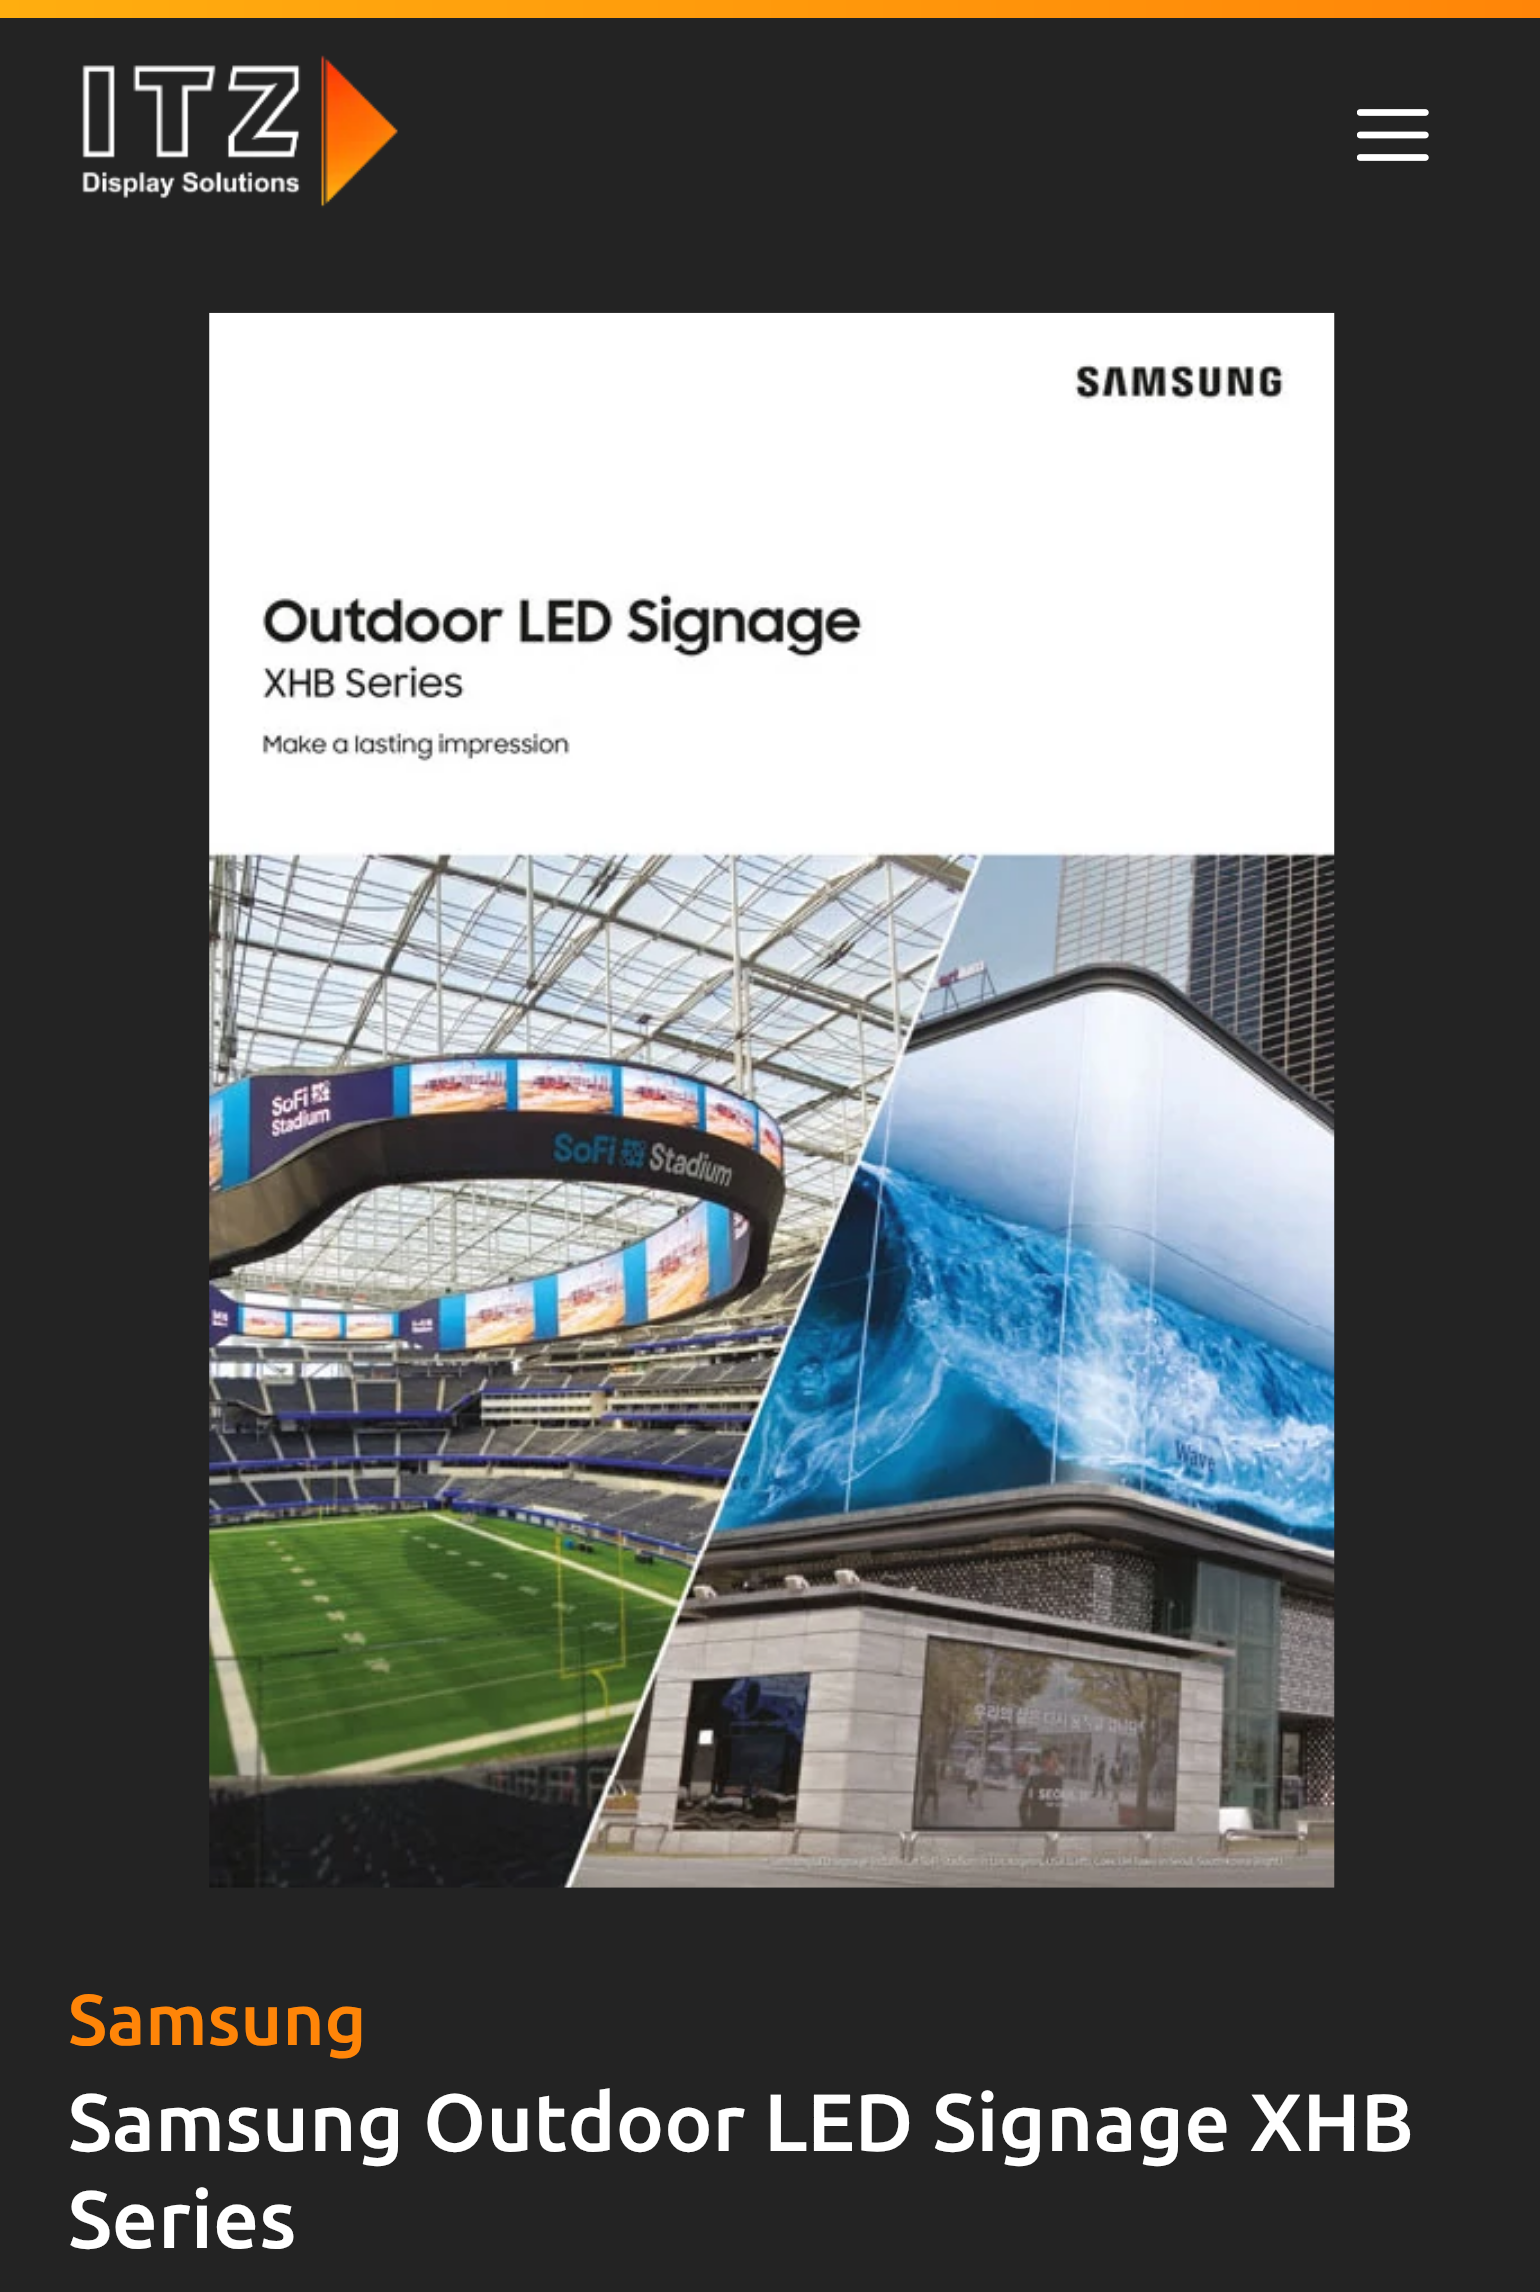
#include "include/core/SkBlurTypes.h"
#include "include/core/SkCanvas.h"
#include "include/core/SkData.h"
#include "include/core/SkFont.h"
#include "include/core/SkFontMgr.h"
#include "include/core/SkImage.h"
#include "include/core/SkMaskFilter.h"
#include "include/core/SkPaint.h"
#include "include/core/SkPathBuilder.h"
#include "include/core/SkTextBlob.h"
#include "include/effects/SkDashPathEffect.h"
#include "include/effects/SkGradientShader.h"
#include "include/utils/SkParsePath.h"

extern sk_sp<SkFontMgr> fontMgr;

static SkFont font(const char* family, int weight, float size, bool italic = false) {
    SkFontStyle style(weight, SkFontStyle::kNormal_Width,
        italic ? SkFontStyle::kItalic_Slant : SkFontStyle::kUpright_Slant);
    SkFont result(fontMgr->matchFamilyStyle(family, style), size);
    result.setSubpixel(true);
    return result;
}

static void drawLabel(SkCanvas* canvas, const char* s, float x, float y, const SkFont& font, SkColor color) {
    SkPaint ink(SkColor4f::FromColor(color));
    ink.setAntiAlias(true);
    canvas->drawString(s, x, y, font, ink);
}

static void drawPhoto(SkCanvas* canvas, const char* path, float x, float y, float w, float h) {
    auto image = SkImages::DeferredFromEncodedData(SkData::MakeFromFileName(path));
    canvas->drawImageRect(image, SkRect::MakeXYWH(x, y, w, h), SkSamplingOptions());
}

void draw(SkCanvas* canvas) {
    SkPaint paint;
    paint.setAntiAlias(true);
    canvas->clear(0xFF232323);
    {
        const SkColor colors[] = {0xFFFFAE0F, 0xFFFF8508};
        const float stops[] = {0, 1};
        const SkPoint ends[] = {{0, 9}, {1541, 9}};
        paint.setShader(SkGradientShader::MakeLinear(ends, colors, stops, 2, SkTileMode::kClamp));
        paint.setAlpha(255);
    }
    canvas->drawRect(SkRect::MakeXYWH(0, 0, 1540, 18), paint);
    drawPhoto(canvas, "assets/img1.png", 82, 55, 316, 153);
    drawPhoto(canvas, "assets/img2.png", 1357, 109, 72, 52);
    drawPhoto(canvas, "assets/img3.png", 209, 312, 1126, 1576);
    SkFont font1 = font("Ubuntu", 500, 72);
    drawLabel(canvas, "Samsung", 68, 2045, font1, 0xFFFF8508);
    SkFont font2 = font("Ubuntu", 500, 81);
    drawLabel(canvas, "Samsung Outdoor LED Signage XHB", 68, 2151, font2, 0xFFFFFFFF);
    drawLabel(canvas, "Series", 68, 2248, font2, 0xFFFFFFFF);
}
